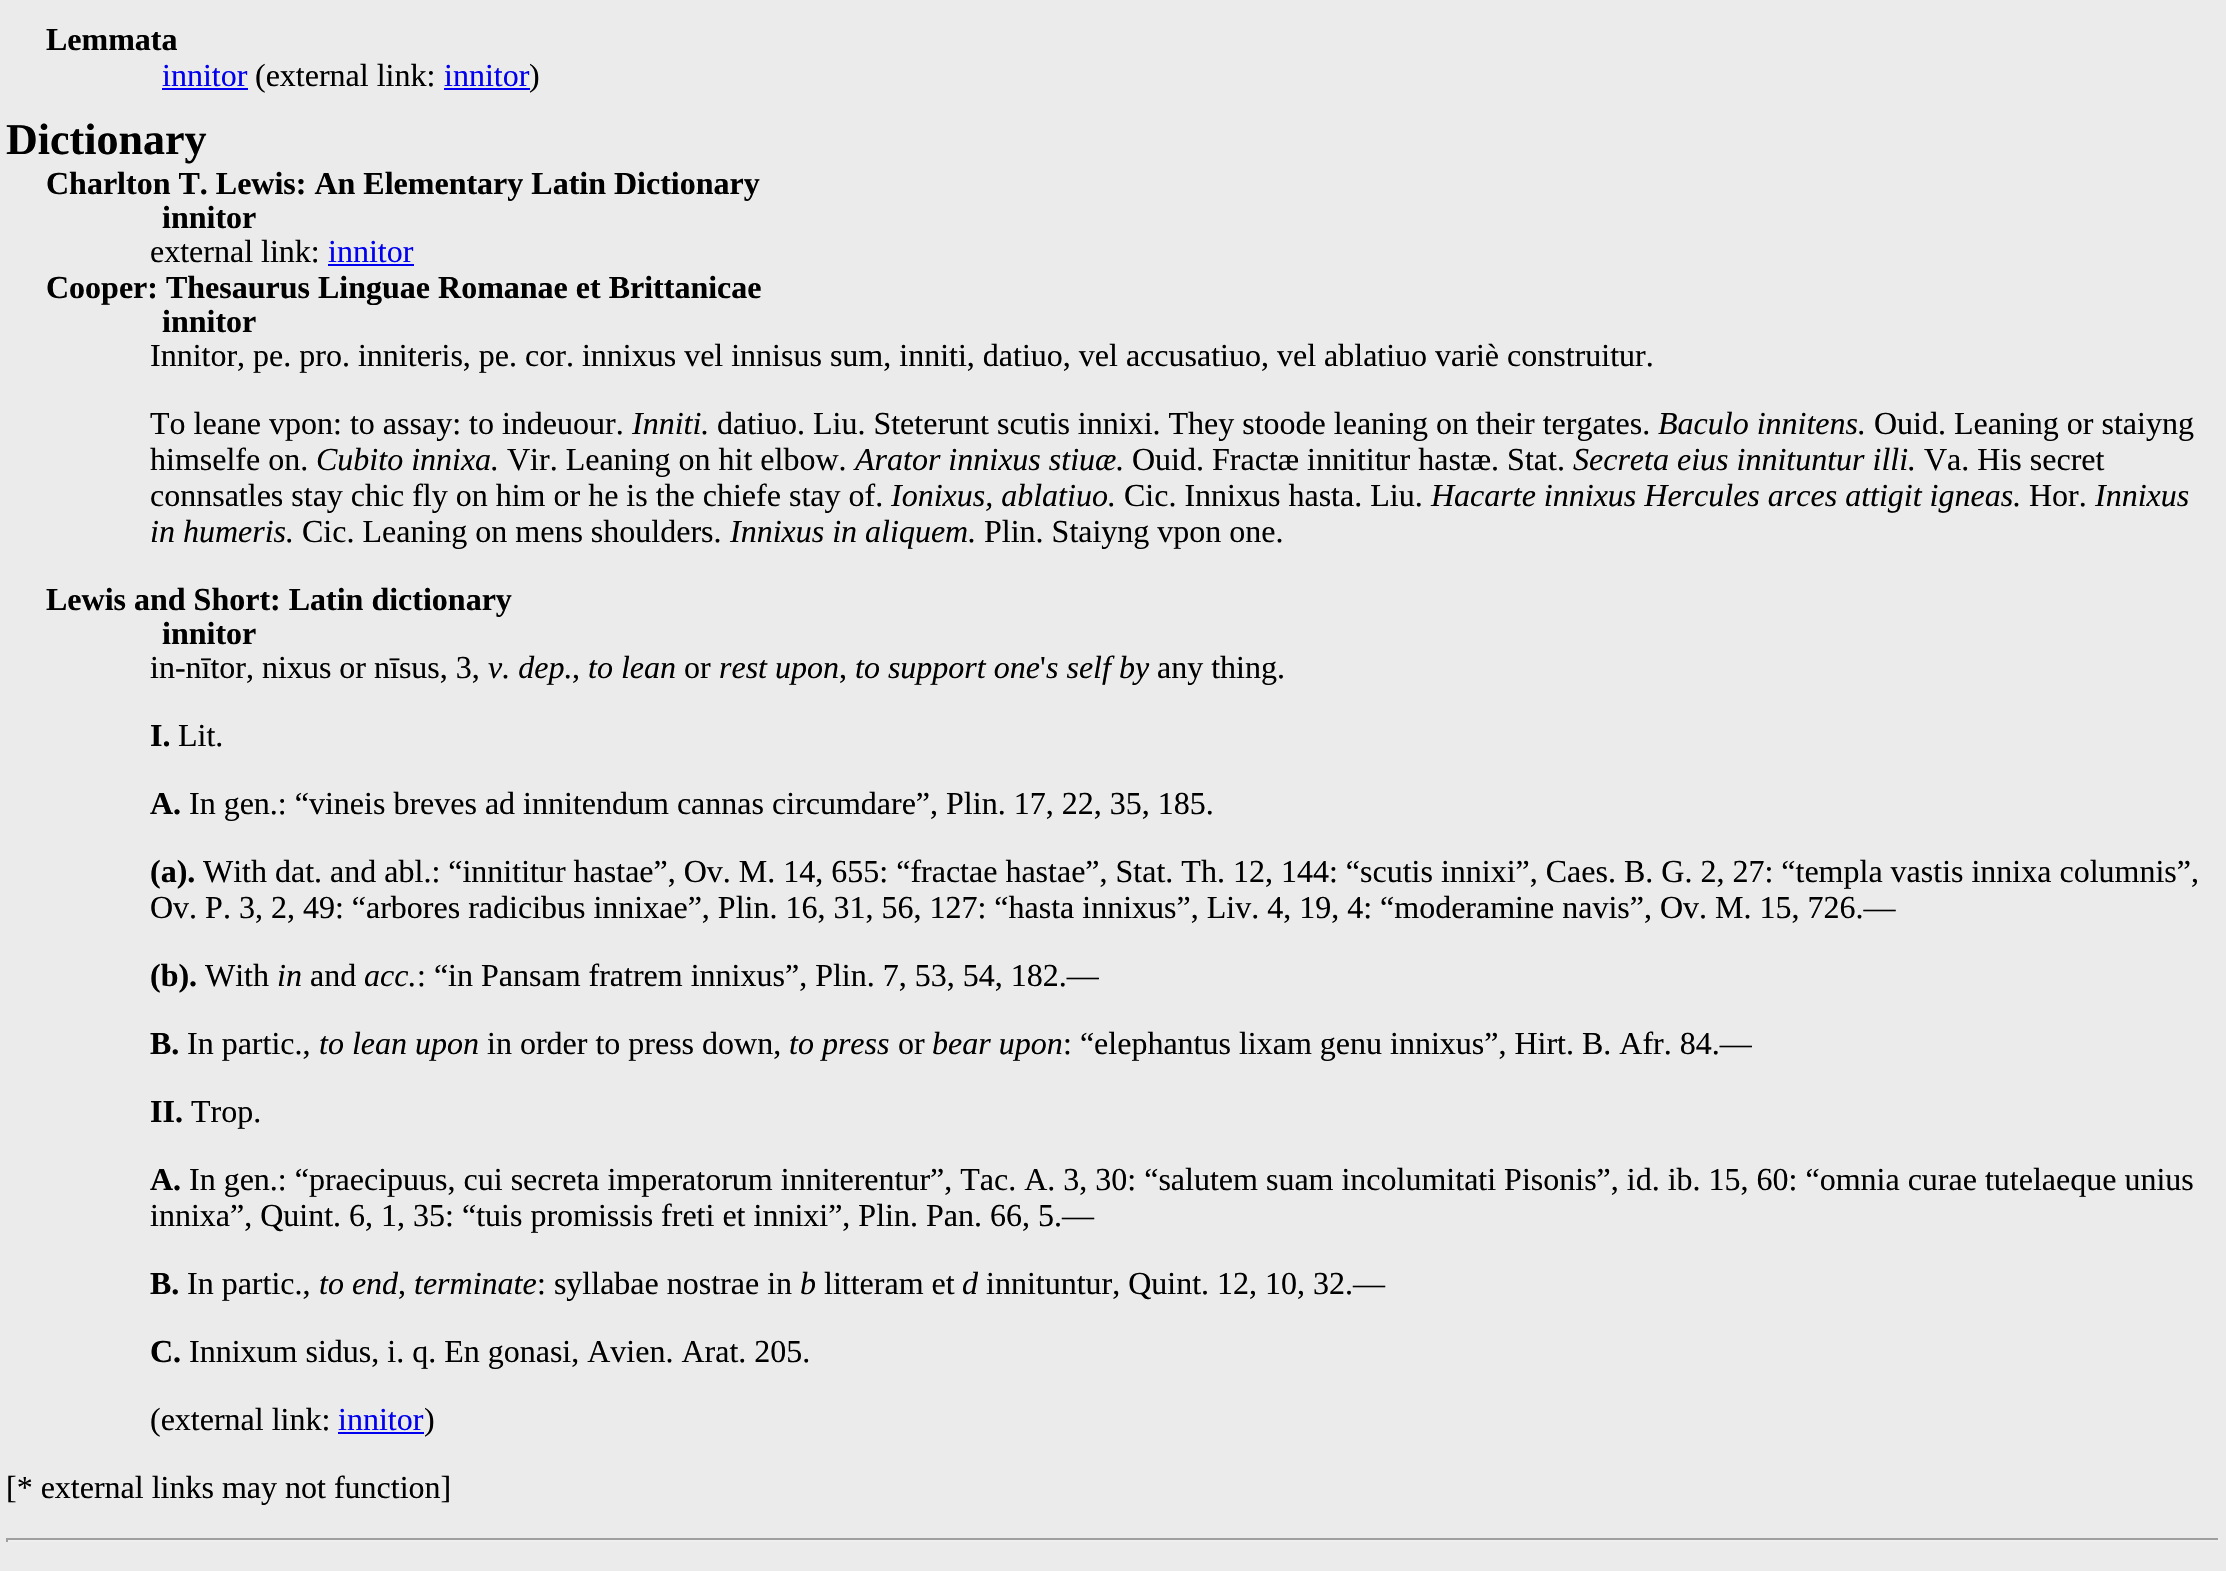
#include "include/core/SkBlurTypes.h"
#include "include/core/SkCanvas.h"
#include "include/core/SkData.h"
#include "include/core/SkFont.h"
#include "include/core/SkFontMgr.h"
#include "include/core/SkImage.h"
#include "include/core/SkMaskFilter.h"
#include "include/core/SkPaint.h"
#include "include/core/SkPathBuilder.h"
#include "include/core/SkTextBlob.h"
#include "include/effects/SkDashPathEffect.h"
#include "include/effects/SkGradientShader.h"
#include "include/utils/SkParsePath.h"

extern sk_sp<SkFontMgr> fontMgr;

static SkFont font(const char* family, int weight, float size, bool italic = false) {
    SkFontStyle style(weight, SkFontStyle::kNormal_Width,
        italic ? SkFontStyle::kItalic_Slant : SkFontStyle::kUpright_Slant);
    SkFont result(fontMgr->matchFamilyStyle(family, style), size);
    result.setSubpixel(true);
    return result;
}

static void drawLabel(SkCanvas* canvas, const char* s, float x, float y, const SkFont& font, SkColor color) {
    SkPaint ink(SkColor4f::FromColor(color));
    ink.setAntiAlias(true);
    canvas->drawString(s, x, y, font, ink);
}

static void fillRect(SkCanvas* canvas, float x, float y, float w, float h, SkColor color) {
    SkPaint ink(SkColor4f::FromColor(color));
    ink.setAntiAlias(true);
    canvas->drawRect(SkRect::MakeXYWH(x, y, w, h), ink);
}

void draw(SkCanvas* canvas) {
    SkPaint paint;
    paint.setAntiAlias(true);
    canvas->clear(0xFFEBEBEB);
    SkFont font1 = font("Liberation Serif", 700, 32);
    drawLabel(canvas, "Lemmata", 46, 50, font1, 0xFF000000);
    SkFont font2 = font("Liberation Serif", 400, 32);
    drawLabel(canvas, "innitor", 162, 86, font2, 0xFF0000EE);
    fillRect(canvas, 162, 88, 86, 2, 0xFF0000EE);
    drawLabel(canvas, "(external link:", 255, 86, font2, 0xFF000000);
    drawLabel(canvas, "innitor", 444, 86, font2, 0xFF0000EE);
    fillRect(canvas, 444, 88, 86, 2, 0xFF0000EE);
    drawLabel(canvas, ")", 529, 86, font2, 0xFF000000);
    SkFont font3 = font("Liberation Serif", 700, 44);
    drawLabel(canvas, "Dictionary", 6, 154, font3, 0xFF000000);
    drawLabel(canvas, "Charlton T. Lewis: An Elementary Latin Dictionary", 46, 194, font1, 0xFF000000);
    drawLabel(canvas, "innitor", 162, 228, font1, 0xFF000000);
    drawLabel(canvas, "external link:", 150, 262, font2, 0xFF000000);
    drawLabel(canvas, "innitor", 328, 262, font2, 0xFF0000EE);
    fillRect(canvas, 328, 264, 86, 2, 0xFF0000EE);
    drawLabel(canvas, "Cooper: Thesaurus Linguae Romanae et Brittanicae", 46, 298, font1, 0xFF000000);
    drawLabel(canvas, "innitor", 162, 332, font1, 0xFF000000);
    drawLabel(canvas, "Innitor, pe. pro. inniteris, pe. cor. innixus vel innisus sum, inniti, datiuo, vel accusatiuo, vel ablatiuo variè construitur.", 150, 366, font2, 0xFF000000);
    drawLabel(canvas, "To leane vpon: to assay: to indeuour.", 150, 434, font2, 0xFF000000);
    SkFont font4 = font("Liberation Serif", 400, 32, true);
    drawLabel(canvas, "Inniti.", 632, 434, font4, 0xFF000000);
    drawLabel(canvas, "datiuo. Liu. Steterunt scutis innixi. They stoode leaning on their tergates.", 717, 434, font2, 0xFF000000);
    drawLabel(canvas, "Baculo innitens.", 1658, 434, font4, 0xFF000000);
    drawLabel(canvas, "Ouid. Leaning or staiyng", 1874, 434, font2, 0xFF000000);
    drawLabel(canvas, "himselfe on.", 150, 470, font2, 0xFF000000);
    drawLabel(canvas, "Cubito innixa.", 316, 470, font4, 0xFF000000);
    drawLabel(canvas, "Vir. Leaning on hit elbow.", 507, 470, font2, 0xFF000000);
    drawLabel(canvas, "Arator innixus stiuæ.", 855, 470, font4, 0xFF000000);
    drawLabel(canvas, "Ouid. Fractæ innititur hastæ. Stat.", 1132, 470, font2, 0xFF000000);
    drawLabel(canvas, "Secreta eius innituntur illi.", 1573, 470, font4, 0xFF000000);
    drawLabel(canvas, "Va. His secret", 1924, 470, font2, 0xFF000000);
    drawLabel(canvas, "connsatles stay chic fly on him or he is the chiefe stay of.", 150, 506, font2, 0xFF000000);
    drawLabel(canvas, "Ionixus, ablatiuo.", 891, 506, font4, 0xFF000000);
    drawLabel(canvas, "Cic. Innixus hasta. Liu.", 1124, 506, font2, 0xFF000000);
    drawLabel(canvas, "Hacarte innixus Hercules arces attigit igneas.", 1431, 506, font4, 0xFF000000);
    drawLabel(canvas, "Hor.", 2029, 506, font2, 0xFF000000);
    drawLabel(canvas, "Innixus", 2095, 506, font4, 0xFF000000);
    drawLabel(canvas, "in humeris.", 150, 542, font4, 0xFF000000);
    drawLabel(canvas, "Cic. Leaning on mens shoulders.", 302, 542, font2, 0xFF000000);
    drawLabel(canvas, "Innixus in aliquem.", 730, 542, font4, 0xFF000000);
    drawLabel(canvas, "Plin. Staiyng vpon one.", 984, 542, font2, 0xFF000000);
    drawLabel(canvas, "Lewis and Short: Latin dictionary", 46, 610, font1, 0xFF000000);
    drawLabel(canvas, "innitor", 162, 644, font1, 0xFF000000);
    drawLabel(canvas, "in-nītor, nixus or nīsus, 3,", 150, 678, font2, 0xFF000000);
    drawLabel(canvas, "v. dep.", 488, 678, font4, 0xFF000000);
    drawLabel(canvas, ",", 572, 678, font2, 0xFF000000);
    drawLabel(canvas, "to lean", 588, 678, font4, 0xFF000000);
    drawLabel(canvas, "or", 684, 678, font2, 0xFF000000);
    drawLabel(canvas, "rest upon", 719, 678, font4, 0xFF000000);
    drawLabel(canvas, ",", 839, 678, font2, 0xFF000000);
    drawLabel(canvas, "to support one", 855, 678, font4, 0xFF000000);
    drawLabel(canvas, "'", 1040, 678, font2, 0xFF000000);
    drawLabel(canvas, "s self by", 1046, 678, font4, 0xFF000000);
    drawLabel(canvas, "any thing.", 1157, 678, font2, 0xFF000000);
    drawLabel(canvas, "I.", 150, 746, font1, 0xFF000000);
    drawLabel(canvas, "Lit.", 178, 746, font2, 0xFF000000);
    drawLabel(canvas, "A.", 150, 814, font1, 0xFF000000);
    drawLabel(canvas, "In gen.: “vineis breves ad innitendum cannas circumdare”, Plin. 17, 22, 35, 185.", 189, 814, font2, 0xFF000000);
    drawLabel(canvas, "(a).", 150, 882, font1, 0xFF000000);
    drawLabel(canvas, "With dat. and abl.: “innititur hastae”, Ov. M. 14, 655: “fractae hastae”, Stat. Th. 12, 144: “scutis innixi”, Caes. B. G. 2, 27: “templa vastis innixa columnis”,", 203, 882, font2, 0xFF000000);
    drawLabel(canvas, "Ov. P. 3, 2, 49: “arbores radicibus innixae”, Plin. 16, 31, 56, 127: “hasta innixus”, Liv. 4, 19, 4: “moderamine navis”, Ov. M. 15, 726.—", 150, 918, font2, 0xFF000000);
    drawLabel(canvas, "(b).", 150, 986, font1, 0xFF000000);
    drawLabel(canvas, "With", 205, 986, font2, 0xFF000000);
    drawLabel(canvas, "in", 277, 986, font4, 0xFF000000);
    drawLabel(canvas, "and", 310, 986, font2, 0xFF000000);
    drawLabel(canvas, "acc.", 364, 986, font4, 0xFF000000);
    drawLabel(canvas, ": “in Pansam fratrem innixus”, Plin. 7, 53, 54, 182.—", 417, 986, font2, 0xFF000000);
    drawLabel(canvas, "B.", 150, 1054, font1, 0xFF000000);
    drawLabel(canvas, "In partic.,", 187, 1054, font2, 0xFF000000);
    drawLabel(canvas, "to lean upon", 319, 1054, font4, 0xFF000000);
    drawLabel(canvas, "in order to press down,", 487, 1054, font2, 0xFF000000);
    drawLabel(canvas, "to press", 789, 1054, font4, 0xFF000000);
    drawLabel(canvas, "or", 898, 1054, font2, 0xFF000000);
    drawLabel(canvas, "bear upon", 932, 1054, font4, 0xFF000000);
    drawLabel(canvas, ": “elephantus lixam genu innixus”, Hirt. B. Afr. 84.—", 1063, 1054, font2, 0xFF000000);
    drawLabel(canvas, "II.", 150, 1122, font1, 0xFF000000);
    drawLabel(canvas, "Trop.", 191, 1122, font2, 0xFF000000);
    drawLabel(canvas, "A.", 150, 1190, font1, 0xFF000000);
    drawLabel(canvas, "In gen.: “praecipuus, cui secreta imperatorum inniterentur”, Tac. A. 3, 30: “salutem suam incolumitati Pisonis”, id. ib. 15, 60: “omnia curae tutelaeque unius", 189, 1190, font2, 0xFF000000);
    drawLabel(canvas, "innixa”, Quint. 6, 1, 35: “tuis promissis freti et innixi”, Plin. Pan. 66, 5.—", 150, 1226, font2, 0xFF000000);
    drawLabel(canvas, "B.", 150, 1294, font1, 0xFF000000);
    drawLabel(canvas, "In partic.,", 187, 1294, font2, 0xFF000000);
    drawLabel(canvas, "to end", 319, 1294, font4, 0xFF000000);
    drawLabel(canvas, ",", 398, 1294, font2, 0xFF000000);
    drawLabel(canvas, "terminate", 414, 1294, font4, 0xFF000000);
    drawLabel(canvas, ": syllabae nostrae in", 537, 1294, font2, 0xFF000000);
    drawLabel(canvas, "b", 800, 1294, font4, 0xFF000000);
    drawLabel(canvas, "litteram et", 824, 1294, font2, 0xFF000000);
    drawLabel(canvas, "d", 962, 1294, font4, 0xFF000000);
    drawLabel(canvas, "innituntur, Quint. 12, 10, 32.—", 986, 1294, font2, 0xFF000000);
    drawLabel(canvas, "C.", 150, 1362, font1, 0xFF000000);
    drawLabel(canvas, "Innixum sidus, i. q. En gonasi, Avien. Arat. 205.", 189, 1362, font2, 0xFF000000);
    drawLabel(canvas, "(external link:", 150, 1430, font2, 0xFF000000);
    drawLabel(canvas, "innitor", 338, 1430, font2, 0xFF0000EE);
    fillRect(canvas, 338, 1432, 86, 2, 0xFF0000EE);
    drawLabel(canvas, ")", 424, 1430, font2, 0xFF000000);
    drawLabel(canvas, "[* external links may not function]", 6, 1498, font2, 0xFF000000);
    fillRect(canvas, 6, 1538, 2214, 2, 0xFF9F9F9F);
    fillRect(canvas, 2218, 1538, 2, 4, 0xFFEEEEEE);
    fillRect(canvas, 6, 1540, 2214, 2, 0xFFEEEEEE);
    fillRect(canvas, 6, 1538, 2, 4, 0xFF9F9F9F);
}
